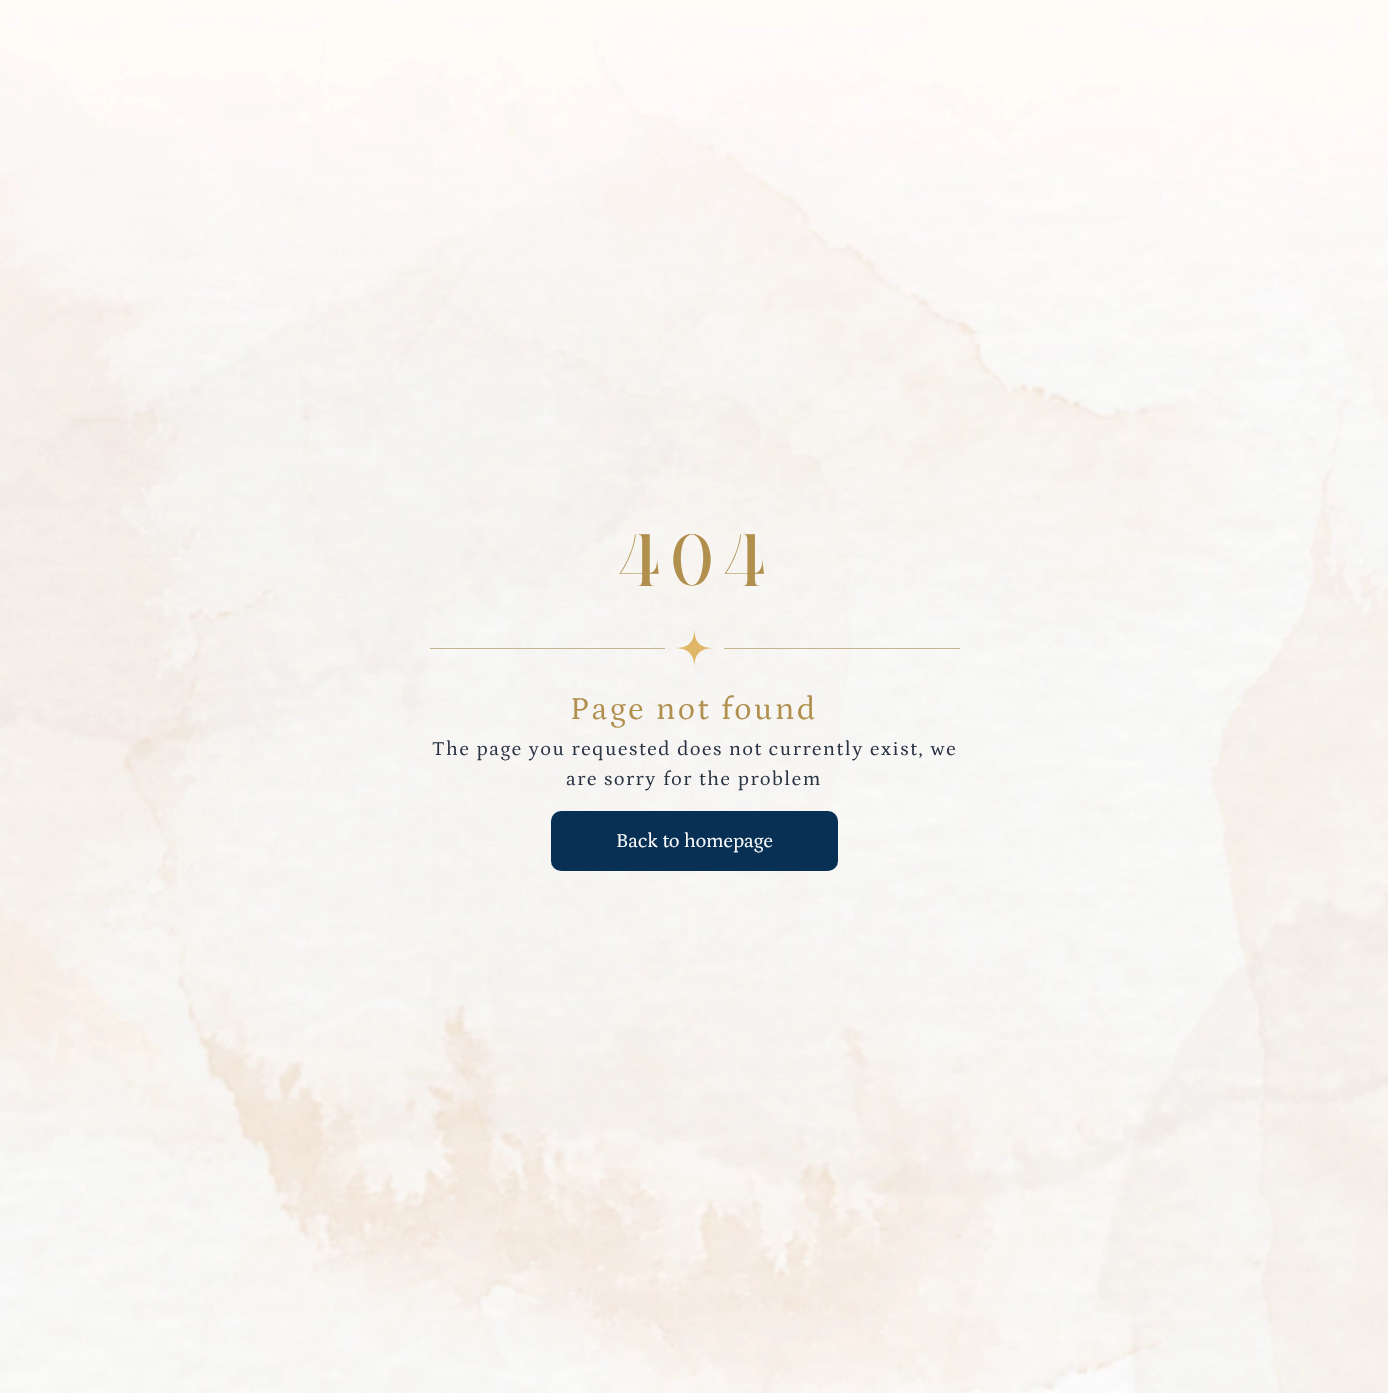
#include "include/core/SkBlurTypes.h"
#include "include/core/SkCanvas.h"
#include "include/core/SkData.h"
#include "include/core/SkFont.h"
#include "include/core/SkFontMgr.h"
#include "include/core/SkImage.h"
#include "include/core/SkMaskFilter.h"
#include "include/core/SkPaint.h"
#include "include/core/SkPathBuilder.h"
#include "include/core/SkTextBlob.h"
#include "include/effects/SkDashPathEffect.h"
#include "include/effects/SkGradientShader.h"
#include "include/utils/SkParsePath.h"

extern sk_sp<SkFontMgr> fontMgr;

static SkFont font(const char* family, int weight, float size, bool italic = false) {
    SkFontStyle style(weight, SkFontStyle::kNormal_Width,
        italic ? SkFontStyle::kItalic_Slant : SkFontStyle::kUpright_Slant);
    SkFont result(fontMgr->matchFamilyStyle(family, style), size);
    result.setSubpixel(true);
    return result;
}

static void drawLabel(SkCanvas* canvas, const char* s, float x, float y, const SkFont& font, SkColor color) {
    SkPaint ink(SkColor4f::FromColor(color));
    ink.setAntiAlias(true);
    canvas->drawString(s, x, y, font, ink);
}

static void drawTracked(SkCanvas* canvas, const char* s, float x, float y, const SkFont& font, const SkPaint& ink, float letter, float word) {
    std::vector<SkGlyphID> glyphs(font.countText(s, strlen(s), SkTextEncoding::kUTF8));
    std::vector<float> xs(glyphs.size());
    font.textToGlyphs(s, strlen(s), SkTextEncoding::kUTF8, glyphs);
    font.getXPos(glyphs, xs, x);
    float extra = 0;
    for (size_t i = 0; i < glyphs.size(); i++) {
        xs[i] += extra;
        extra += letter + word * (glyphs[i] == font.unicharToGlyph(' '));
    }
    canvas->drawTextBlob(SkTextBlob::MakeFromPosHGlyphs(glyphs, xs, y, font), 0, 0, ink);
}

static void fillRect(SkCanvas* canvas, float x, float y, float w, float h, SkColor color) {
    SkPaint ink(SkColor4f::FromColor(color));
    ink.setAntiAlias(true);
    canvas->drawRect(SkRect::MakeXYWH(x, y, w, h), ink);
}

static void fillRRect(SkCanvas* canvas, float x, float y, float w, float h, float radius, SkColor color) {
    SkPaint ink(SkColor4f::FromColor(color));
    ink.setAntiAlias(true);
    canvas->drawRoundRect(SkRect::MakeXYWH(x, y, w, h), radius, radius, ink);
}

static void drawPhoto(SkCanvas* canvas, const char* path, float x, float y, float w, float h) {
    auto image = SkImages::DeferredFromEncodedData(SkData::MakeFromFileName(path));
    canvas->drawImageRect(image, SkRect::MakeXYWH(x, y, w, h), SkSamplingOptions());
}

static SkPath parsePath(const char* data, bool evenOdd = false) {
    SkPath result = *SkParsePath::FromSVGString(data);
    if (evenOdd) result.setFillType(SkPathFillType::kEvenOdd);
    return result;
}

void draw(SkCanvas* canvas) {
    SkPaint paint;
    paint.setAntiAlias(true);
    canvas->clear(0xFFFFFFFF);
    drawPhoto(canvas, "assets/img1.png", 0, 0, 1388, 1393);
    SkFont font1 = font("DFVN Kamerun", 400, 74);
    paint.setColor(0xFFB1904E);
    drawTracked(canvas, "404", 616, 586, font1, paint, 6, 0);
    fillRect(canvas, 430, 648, 235, 1, 0xFFC4B593);
    paint.setColor(0xFFE0B766);
    canvas->drawPath(parsePath("M694.5 629C694.5 642.5 700 648 714 648C700 648.5 694.5 654 694.5 667.5C694 654 688.5 648.5 675 648C688.5 648 694 642.5 694.5 629Z"), paint);
    fillRect(canvas, 724, 648, 236, 1, 0xFFC4B593);
    SkFont font2 = font("Petrona", 400, 32.5f);
    paint.setColor(0xFFB1904E);
    drawTracked(canvas, "Page not found", 570, 719, font2, paint, 2.6f, 0);
    SkFont font3 = font("Petrona", 400, 20);
    paint.setColor(0xFF2A3444);
    drawTracked(canvas, "The page you requested does not currently exist, we", 432, 755, font3, paint, 1.6f, 0);
    drawTracked(canvas, "are sorry for the problem", 566, 785, font3, paint, 1.6f, 0);
    fillRRect(canvas, 551, 811, 287, 60, 10, 0xFF073054);
    drawLabel(canvas, "Back to homepage", 616, 847, font3, 0xFFFFFFFF);
}
